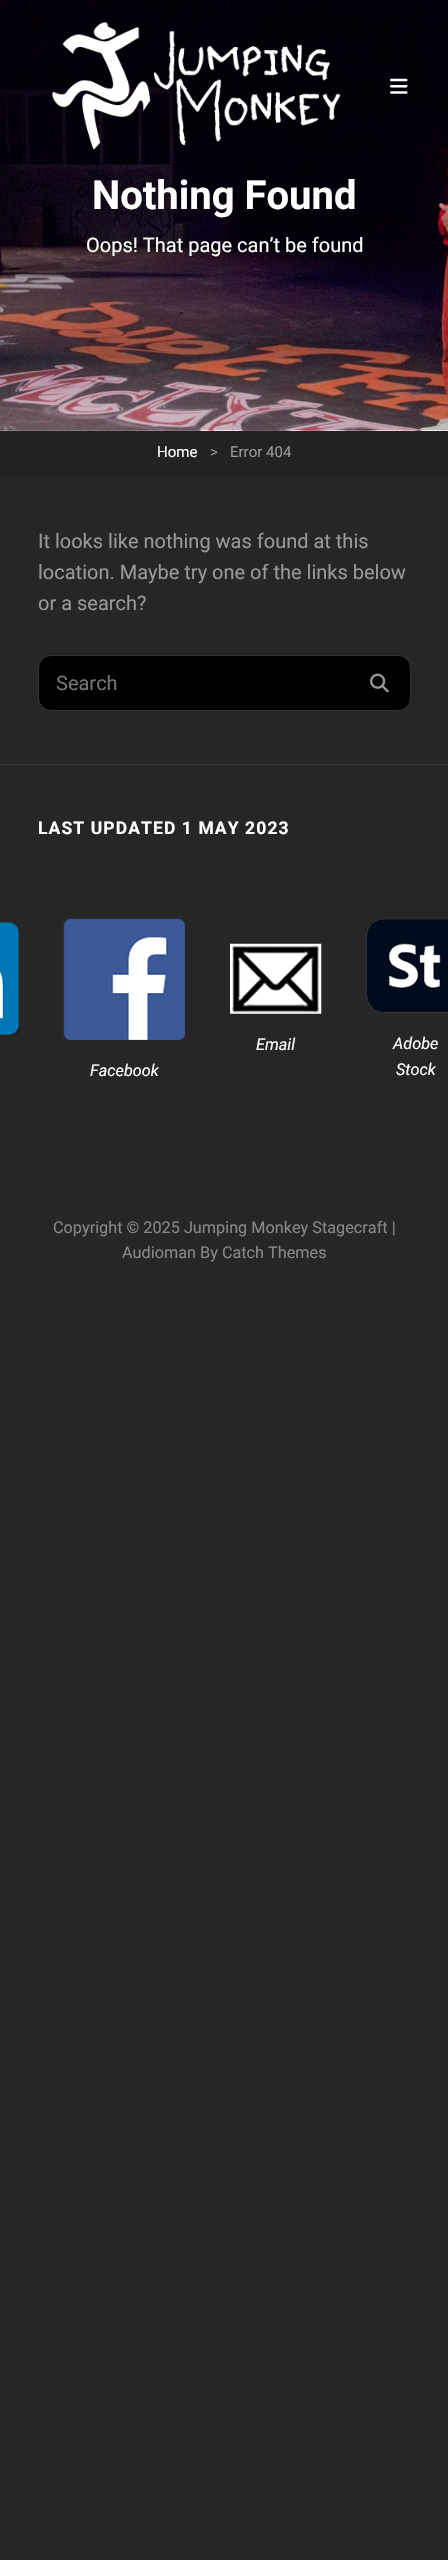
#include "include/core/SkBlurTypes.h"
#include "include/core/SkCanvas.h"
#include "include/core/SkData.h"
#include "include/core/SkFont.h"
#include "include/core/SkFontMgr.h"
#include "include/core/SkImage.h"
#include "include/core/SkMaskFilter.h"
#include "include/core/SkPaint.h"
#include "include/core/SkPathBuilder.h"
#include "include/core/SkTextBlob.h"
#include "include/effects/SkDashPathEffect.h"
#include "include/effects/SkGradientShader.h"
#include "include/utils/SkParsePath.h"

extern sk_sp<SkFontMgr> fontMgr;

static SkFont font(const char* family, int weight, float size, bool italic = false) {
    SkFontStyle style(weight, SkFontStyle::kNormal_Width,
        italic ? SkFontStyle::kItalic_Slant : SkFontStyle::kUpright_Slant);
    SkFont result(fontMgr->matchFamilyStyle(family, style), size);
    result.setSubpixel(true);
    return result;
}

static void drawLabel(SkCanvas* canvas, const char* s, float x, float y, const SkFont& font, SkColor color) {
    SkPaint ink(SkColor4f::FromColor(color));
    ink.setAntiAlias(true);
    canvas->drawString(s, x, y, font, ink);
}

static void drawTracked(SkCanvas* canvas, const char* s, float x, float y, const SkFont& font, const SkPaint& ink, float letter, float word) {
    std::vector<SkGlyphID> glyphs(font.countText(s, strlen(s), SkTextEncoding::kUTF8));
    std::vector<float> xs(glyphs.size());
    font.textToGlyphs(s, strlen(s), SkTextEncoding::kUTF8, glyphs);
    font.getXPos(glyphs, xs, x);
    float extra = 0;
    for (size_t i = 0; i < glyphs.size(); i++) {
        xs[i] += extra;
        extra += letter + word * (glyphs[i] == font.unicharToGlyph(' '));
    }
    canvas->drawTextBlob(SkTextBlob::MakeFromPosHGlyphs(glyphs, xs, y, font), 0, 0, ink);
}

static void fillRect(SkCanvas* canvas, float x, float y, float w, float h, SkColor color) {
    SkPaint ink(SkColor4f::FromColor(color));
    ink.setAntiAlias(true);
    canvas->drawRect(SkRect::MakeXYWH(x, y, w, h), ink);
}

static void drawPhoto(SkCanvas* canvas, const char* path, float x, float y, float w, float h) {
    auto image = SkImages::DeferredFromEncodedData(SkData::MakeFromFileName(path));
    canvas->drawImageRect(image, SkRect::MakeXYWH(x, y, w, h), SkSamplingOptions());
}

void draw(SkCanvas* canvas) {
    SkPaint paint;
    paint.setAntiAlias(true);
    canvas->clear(0xFF262626);
    drawPhoto(canvas, "assets/img3.png", 0, 0, 448, 430);
    drawPhoto(canvas, "assets/img1.png", 52, 22, 289, 129);
    drawPhoto(canvas, "assets/img2.png", 390, 78, 18, 16);
    SkFont font1 = font("Roboto", 700, 40);
    drawLabel(canvas, "Nothing Found", 92, 209, font1, 0xFFFFFFFF);
    SkFont font2 = font("Roboto", 400, 20);
    drawLabel(canvas, "Oops! That page can’t be found", 86, 252, font2, 0xFFFFFFFF);
    drawPhoto(canvas, "assets/img4.png", 0, 430, 448, 1);
    fillRect(canvas, 0, 431, 448, 44, 0xFF222222);
    SkFont font3 = font("Roboto", 400, 15);
    drawLabel(canvas, "Home", 157, 457, font3, 0xFFFFFFFF);
    drawLabel(canvas, ">", 210, 457, font3, 0xFF999999);
    drawLabel(canvas, "Error 404", 230, 457, font3, 0xFF999999);
    fillRect(canvas, 0, 764, 448, 1, 0xFF333333);
    drawLabel(canvas, "It looks like nothing was found at this", 38, 548, font2, 0xFF999999);
    drawLabel(canvas, "location. Maybe try one of the links below", 38, 579, font2, 0xFF999999);
    drawLabel(canvas, "or a search?", 38, 610, font2, 0xFF999999);
    paint.setColor(0xFF000000);
    canvas->drawRoundRect(SkRect::MakeXYWH(38.5f, 655.5f, 372, 55), 12.5f, 12.5f, paint);
    paint.setStroke(true);
    paint.setStrokeWidth(1);
    paint.setColor(0xFF333333);
    canvas->drawRoundRect(SkRect::MakeXYWH(38.5f, 655.5f, 372, 55), 12.5f, 12.5f, paint);
    drawLabel(canvas, "Search", 56, 690, font2, 0xFF757575);
    drawPhoto(canvas, "assets/img5.png", 370, 673, 19, 20);
    SkFont font4 = font("Roboto", 700, 17.5f);
    paint.setStroke(false);
    paint.setColor(0xFFFFFFFF);
    drawTracked(canvas, "LAST UPDATED 1 MAY 2023", 38, 834, font4, paint, 1.1f, 0);
    drawPhoto(canvas, "assets/img6.png", 0, 922, 19, 113);
    drawPhoto(canvas, "assets/img7.png", 230, 943, 92, 71);
    SkFont font5 = font("Roboto", 400, 16.25f, true);
    drawLabel(canvas, "Email", 256, 1050, font5, 0xFFFFFFFF);
    drawPhoto(canvas, "assets/img8.png", 366, 918, 82, 95);
    drawLabel(canvas, "Adobe", 393, 1049, font5, 0xFFFFFFFF);
    drawLabel(canvas, "Stock", 396, 1075, font5, 0xFFFFFFFF);
    drawPhoto(canvas, "assets/img9.png", 63, 918, 122, 122);
    drawLabel(canvas, "Facebook", 90, 1076, font5, 0xFFFFFFFF);
    SkFont font6 = font("Roboto", 400, 16.25f);
    drawLabel(canvas, "Copyright © 2025 Jumping Monkey Stagecraft |", 53, 1233, font6, 0xFF888888);
    drawLabel(canvas, "Audioman By Catch Themes", 122, 1258, font6, 0xFF888888);
}
